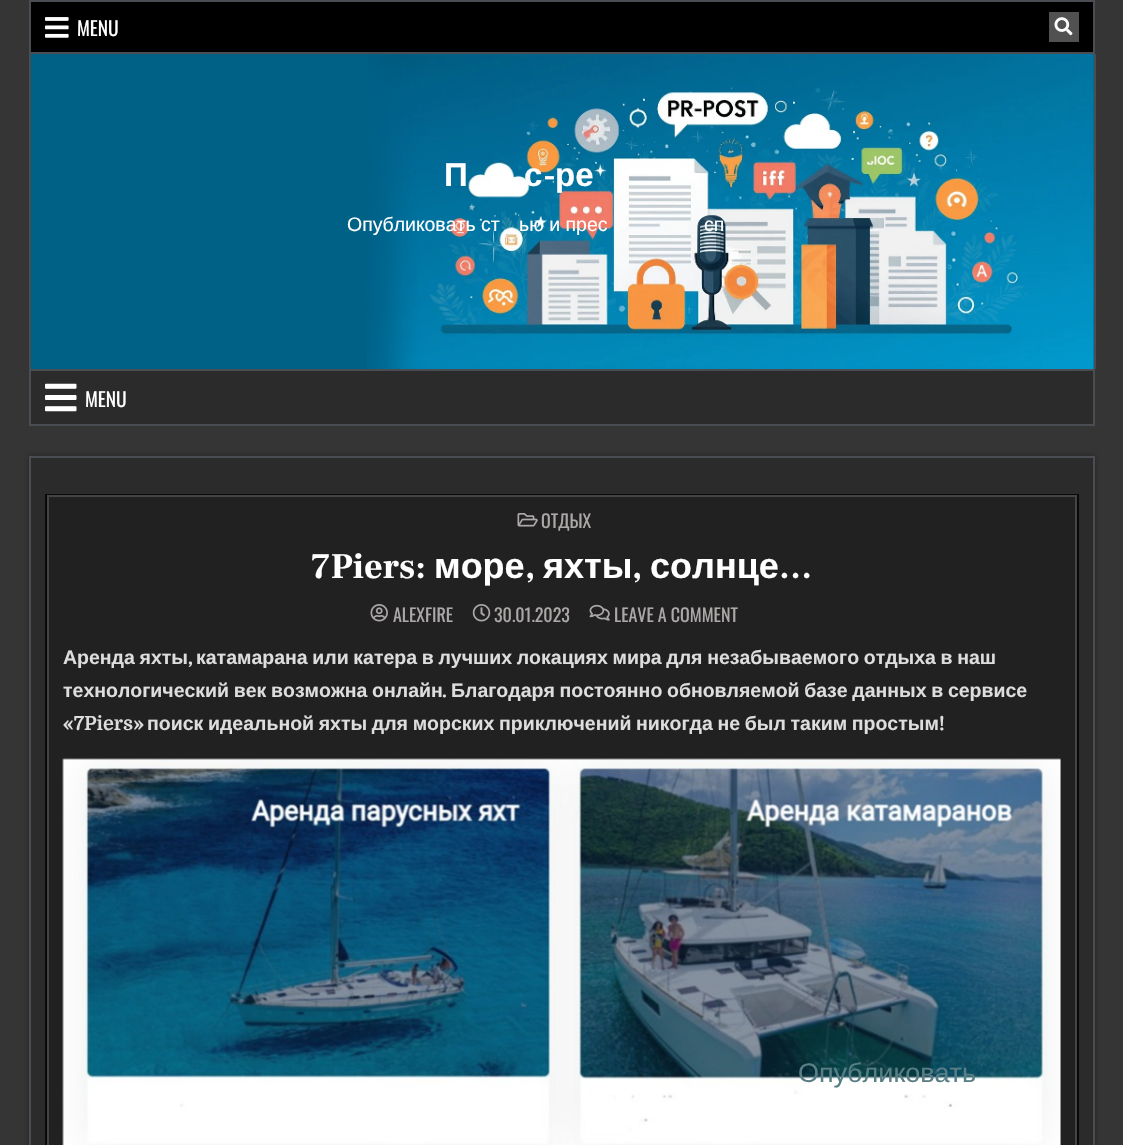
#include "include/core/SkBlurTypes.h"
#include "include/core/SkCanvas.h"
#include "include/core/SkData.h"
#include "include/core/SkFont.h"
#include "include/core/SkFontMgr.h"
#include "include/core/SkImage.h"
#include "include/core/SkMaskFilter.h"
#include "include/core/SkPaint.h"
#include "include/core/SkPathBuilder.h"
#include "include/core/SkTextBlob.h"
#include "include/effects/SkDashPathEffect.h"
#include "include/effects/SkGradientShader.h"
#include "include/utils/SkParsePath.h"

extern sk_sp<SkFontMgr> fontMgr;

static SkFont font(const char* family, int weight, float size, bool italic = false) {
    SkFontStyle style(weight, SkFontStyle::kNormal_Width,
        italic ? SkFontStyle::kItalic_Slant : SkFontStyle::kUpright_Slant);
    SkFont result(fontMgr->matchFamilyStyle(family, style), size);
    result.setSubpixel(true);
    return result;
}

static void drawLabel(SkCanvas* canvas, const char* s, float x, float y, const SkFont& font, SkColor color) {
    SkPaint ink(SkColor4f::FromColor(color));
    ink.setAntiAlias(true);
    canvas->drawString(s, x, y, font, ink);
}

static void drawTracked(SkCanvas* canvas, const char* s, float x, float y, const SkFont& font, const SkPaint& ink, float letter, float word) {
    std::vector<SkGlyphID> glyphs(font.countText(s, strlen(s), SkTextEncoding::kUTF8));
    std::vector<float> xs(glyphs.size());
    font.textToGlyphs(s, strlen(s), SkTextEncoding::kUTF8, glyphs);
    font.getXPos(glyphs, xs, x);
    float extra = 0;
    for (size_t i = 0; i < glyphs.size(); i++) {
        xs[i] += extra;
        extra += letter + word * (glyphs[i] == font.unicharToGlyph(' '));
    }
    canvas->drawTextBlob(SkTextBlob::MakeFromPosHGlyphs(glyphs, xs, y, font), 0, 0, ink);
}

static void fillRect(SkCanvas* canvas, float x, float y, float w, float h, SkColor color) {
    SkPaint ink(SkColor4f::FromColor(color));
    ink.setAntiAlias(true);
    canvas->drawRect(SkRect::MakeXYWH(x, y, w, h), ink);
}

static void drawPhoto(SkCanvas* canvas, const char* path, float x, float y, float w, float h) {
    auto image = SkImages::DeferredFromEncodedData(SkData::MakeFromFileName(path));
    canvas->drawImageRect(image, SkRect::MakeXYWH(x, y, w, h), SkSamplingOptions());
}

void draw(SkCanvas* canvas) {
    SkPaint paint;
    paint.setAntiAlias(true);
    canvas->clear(0xFF353535);
    paint.setColor(0xFF000000);
    canvas->drawRect(SkRect::MakeXYWH(30, 1, 1064, 52), paint);
    paint.setStroke(true);
    paint.setStrokeWidth(2);
    paint.setColor(0xFF4A4E53);
    canvas->drawRect(SkRect::MakeXYWH(30, 1, 1064, 52), paint);
    drawPhoto(canvas, "assets/img1.png", 45, 17, 24, 21);
    SkFont font1 = font("Oswald", 400, 19.5f);
    drawLabel(canvas, "MENU", 77, 36, font1, 0xFFFFFFFF);
    fillRect(canvas, 1049, 12, 30, 30, 0xFF515151);
    drawPhoto(canvas, "assets/img2.png", 1054, 17, 19, 19);
    fillRect(canvas, 31, 54, 1063, 315, 0xFF006187);
    drawPhoto(canvas, "assets/img3.png", 367, 54, 727, 315);
    fillRect(canvas, 1094, 54, 2, 315, 0xFF4A4E53);
    fillRect(canvas, 29, 54, 2, 315, 0xFF4A4E53);
    SkFont font2 = font("Liberation Sans", 700, 33);
    drawLabel(canvas, "П", 444, 186, font2, 0xFFFFFFFF);
    drawLabel(canvas, "с", 524, 186, font2, 0xFFFFFFFF);
    SkFont font3 = font("Frank Ruhl Libre", 700, 33);
    drawLabel(canvas, "-", 543, 186, font3, 0xFFFFFFFF);
    drawLabel(canvas, "ре", 555, 186, font2, 0xFFFFFFFF);
    SkFont font4 = font("Liberation Sans", 400, 19.5f);
    drawLabel(canvas, "Опубликовать ст", 347, 231, font4, 0xFFFFFFFF);
    drawLabel(canvas, "ью и прес", 519, 231, font4, 0xFFFFFFFF);
    drawLabel(canvas, "сп", 704, 231, font4, 0xFFFFFFFF);
    paint.setStroke(false);
    paint.setColor(0xFF2B2B2B);
    canvas->drawRect(SkRect::MakeXYWH(30, 370, 1064, 55), paint);
    paint.setStroke(true);
    paint.setColor(0xFF4A4E53);
    canvas->drawRect(SkRect::MakeXYWH(30, 370, 1064, 55), paint);
    drawPhoto(canvas, "assets/img4.png", 45, 383, 32, 29);
    drawLabel(canvas, "MENU", 85, 407, font1, 0xFFFFFFFF);
    paint.setStroke(false);
    paint.setColor(0x59000000);
    paint.setMaskFilter(SkMaskFilter::MakeBlur(kNormal_SkBlurStyle, 3));
    canvas->drawRect(SkRect::MakeXYWH(29, 456, 1066, 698), paint);
    paint.setMaskFilter(nullptr);
    paint.setColor(0xFF2B2B2B);
    canvas->drawRect(SkRect::MakeXYWH(30, 457, 1064, 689), paint);
    paint.setStroke(true);
    paint.setColor(0xFF4A4E53);
    canvas->drawRect(SkRect::MakeXYWH(30, 457, 1064, 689), paint);
    fillRect(canvas, 49, 497, 1026, 648, 0xFF212121);
    paint.setColor(0xFF090909);
    canvas->drawRect(SkRect::MakeXYWH(46, 495, 1032, 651), paint);
    paint.setColor(0xFF444444);
    canvas->drawRect(SkRect::MakeXYWH(48, 496, 1028, 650), paint);
    drawPhoto(canvas, "assets/img5.png", 517, 513, 21, 14);
    SkFont font5 = font("Oswald", 400, 18);
    drawLabel(canvas, "ОТДЫХ", 541, 528, font5, 0xFFADA8A8);
    SkFont font6 = font("Frank Ruhl Libre", 700, 36);
    drawLabel(canvas, "7Piers:", 311, 578, font6, 0xFFFFFFFF);
    SkFont font7 = font("Liberation Sans", 700, 36);
    drawLabel(canvas, "море", 434, 578, font7, 0xFFFFFFFF);
    drawLabel(canvas, ",", 525, 578, font6, 0xFFFFFFFF);
    drawLabel(canvas, "яхты", 543, 578, font7, 0xFFFFFFFF);
    drawLabel(canvas, ",", 632, 578, font6, 0xFFFFFFFF);
    drawLabel(canvas, "солнце", 650, 578, font7, 0xFFFFFFFF);
    drawLabel(canvas, "…", 779, 578, font6, 0xFFFFFFFF);
    drawPhoto(canvas, "assets/img6.png", 370, 604, 18, 18);
    drawLabel(canvas, "ALEXFIRE", 393, 622, font5, 0xFFADA8A8);
    drawPhoto(canvas, "assets/img7.png", 472, 604, 19, 18);
    drawLabel(canvas, "30.01.2023", 494, 622, font5, 0xFFADA8A8);
    drawPhoto(canvas, "assets/img8.png", 589, 604, 21, 17);
    drawLabel(canvas, "LEAVE A COMMENT", 614, 622, font5, 0xFFADA8A8);
    SkFont font8 = font("Liberation Sans", 700, 19.5f);
    paint.setStroke(false);
    paint.setColor(0xFFDDDDDD);
    drawTracked(canvas, "Аренда яхты", 63, 664, font8, paint, 0, -0.75f);
    SkFont font9 = font("Domine", 700, 19.5f);
    drawLabel(canvas, ",", 188, 664, font9, 0xFFDDDDDD);
    drawTracked(canvas, "катамарана или катера в лучших локациях мира для незабываемого отдыха в наш", 196, 664, font8, paint, 0, -0.75f);
    drawTracked(canvas, "технологический век возможна онлайн", 63, 697, font8, paint, 0, -0.75f);
    drawLabel(canvas, ".", 442, 697, font9, 0xFFDDDDDD);
    drawTracked(canvas, "Благодаря постоянно обновляемой базе данных в сервисе", 451, 697, font8, paint, 0, -0.75f);
    drawLabel(canvas, "«7Piers»", 63, 730, font9, 0xFFDDDDDD);
    drawTracked(canvas, "поиск идеальной яхты для морских приключений никогда не был таким простым", 147, 730, font8, paint, 0, -0.75f);
    drawLabel(canvas, "!", 939, 730, font9, 0xFFDDDDDD);
    drawPhoto(canvas, "assets/img9.png", 62, 758, 999, 387);
    SkFont font10 = font("Liberation Sans", 400, 27);
    drawLabel(canvas, "Опубликовать", 798, 1082, font10, 0xFF597E85);
}
